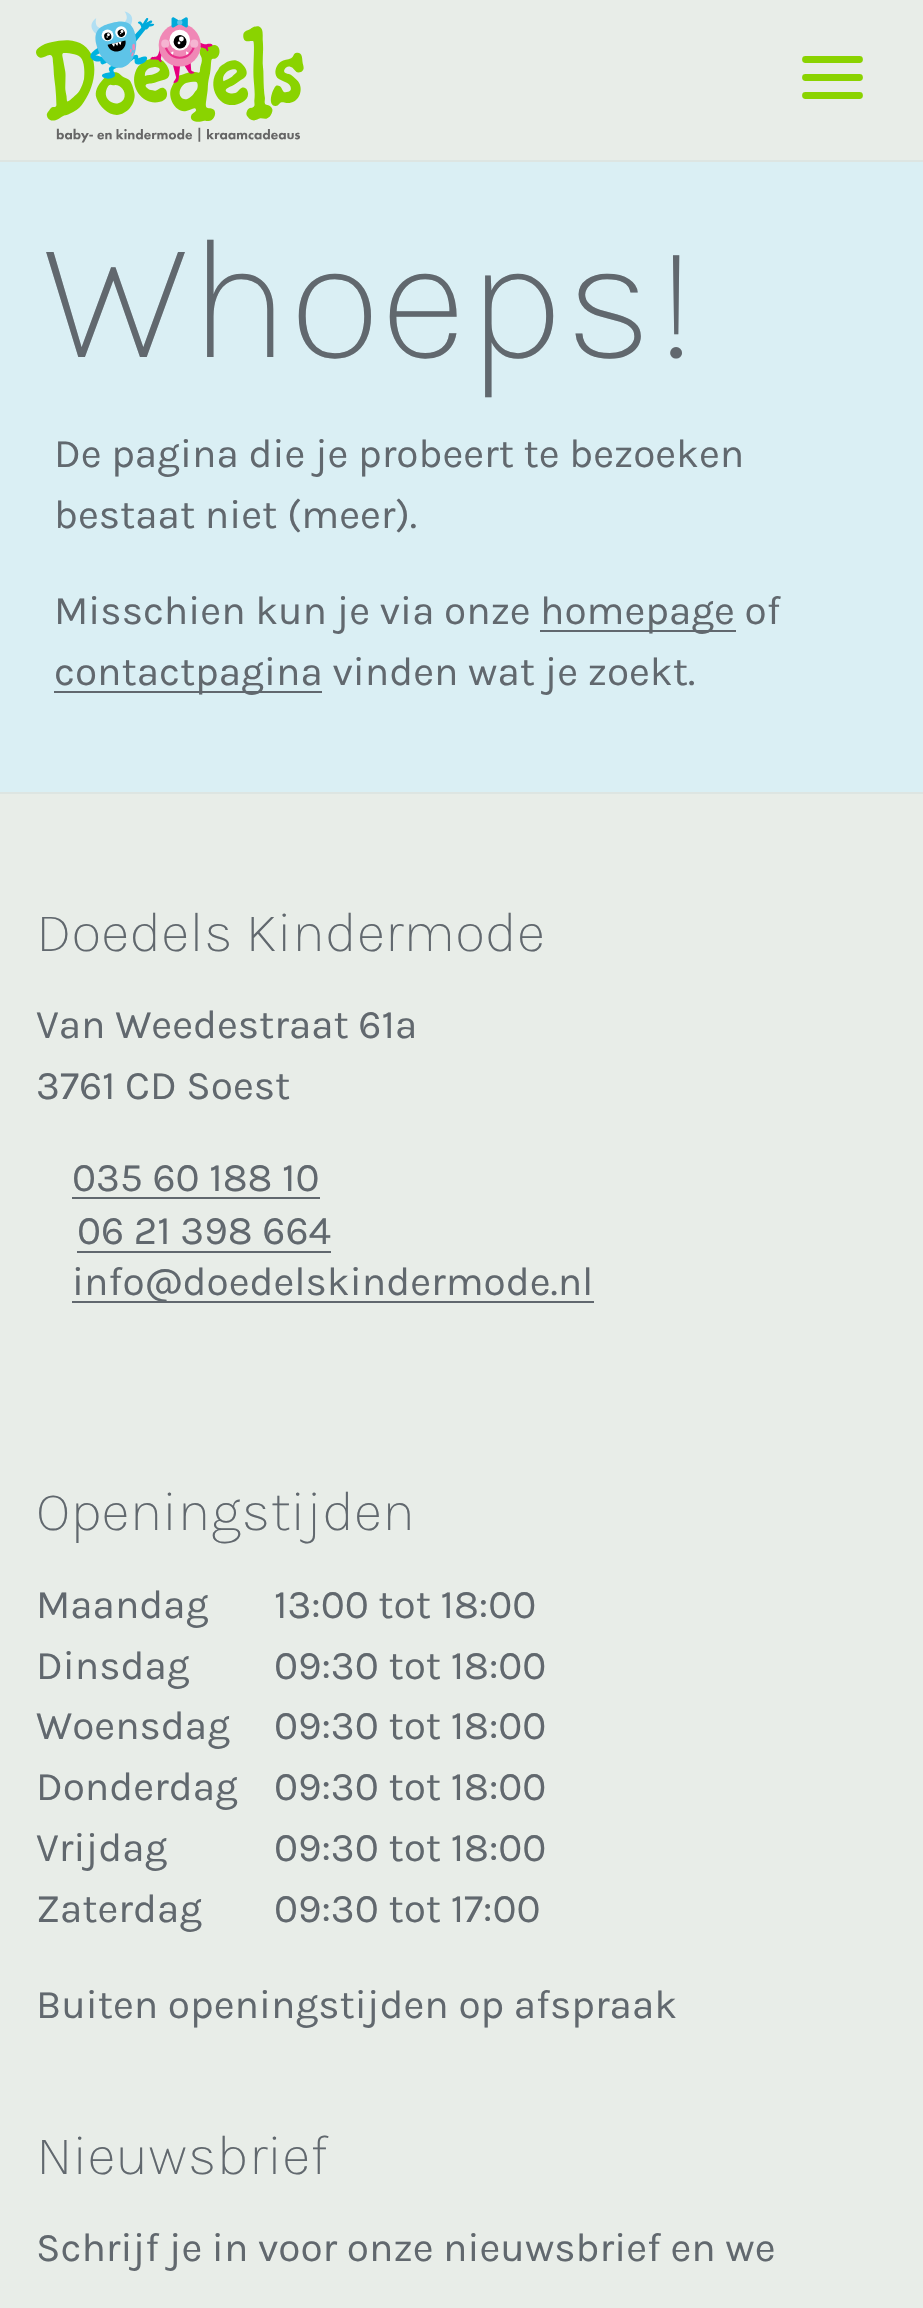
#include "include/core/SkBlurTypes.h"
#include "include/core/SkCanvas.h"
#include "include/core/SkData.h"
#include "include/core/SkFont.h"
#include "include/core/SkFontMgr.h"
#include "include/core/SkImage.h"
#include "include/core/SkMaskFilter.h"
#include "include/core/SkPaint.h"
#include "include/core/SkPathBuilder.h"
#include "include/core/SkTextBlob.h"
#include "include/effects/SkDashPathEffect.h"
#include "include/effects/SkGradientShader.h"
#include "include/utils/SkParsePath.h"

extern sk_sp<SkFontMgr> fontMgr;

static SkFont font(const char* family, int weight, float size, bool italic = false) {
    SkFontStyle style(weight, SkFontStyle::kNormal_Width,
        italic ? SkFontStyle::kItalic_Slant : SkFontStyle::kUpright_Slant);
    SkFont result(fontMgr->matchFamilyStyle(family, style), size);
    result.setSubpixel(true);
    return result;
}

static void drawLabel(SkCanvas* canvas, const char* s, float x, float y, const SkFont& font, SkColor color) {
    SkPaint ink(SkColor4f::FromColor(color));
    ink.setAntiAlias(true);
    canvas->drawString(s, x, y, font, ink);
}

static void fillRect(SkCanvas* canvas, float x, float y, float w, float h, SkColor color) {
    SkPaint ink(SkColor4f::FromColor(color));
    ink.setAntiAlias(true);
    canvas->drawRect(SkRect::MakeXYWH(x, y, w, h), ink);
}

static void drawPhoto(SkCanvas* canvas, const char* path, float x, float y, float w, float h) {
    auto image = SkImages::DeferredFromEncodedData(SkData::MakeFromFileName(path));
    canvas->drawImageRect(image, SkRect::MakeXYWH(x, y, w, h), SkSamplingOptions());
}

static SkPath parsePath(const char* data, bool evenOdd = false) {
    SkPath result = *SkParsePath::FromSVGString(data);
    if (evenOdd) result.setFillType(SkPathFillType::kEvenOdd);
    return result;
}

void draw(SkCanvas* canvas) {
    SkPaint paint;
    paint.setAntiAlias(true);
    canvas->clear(0xFFE8EDE8);
    fillRect(canvas, 0, 160, 923, 2, 0xFFDDE5E2);
    drawPhoto(canvas, "assets/img1.png", 36, 11, 268, 132);
    paint.setStroke(true);
    paint.setStrokeWidth(6.8f);
    paint.setStrokeCap(SkPaint::kRound_Cap);
    paint.setColor(0xFF8AD300);
    canvas->drawPath(parsePath("M805.5 59.5H859.5M805.5 77.5H859.5M805.5 77.5H859.5M805.5 95.5H859.5"), paint);
    fillRect(canvas, 0, 162, 923, 630, 0xFFDAEFF4);
    SkFont font1 = font("Karla", 200, 173);
    drawLabel(canvas, "Whoeps!", 43, 357, font1, 0xFF61686E);
    SkFont font2 = font("Karla", 400, 40.5f);
    drawLabel(canvas, "De pagina die je probeert te bezoeken", 54, 467, font2, 0xFF61686E);
    drawLabel(canvas, "bestaat niet (meer).", 54, 528, font2, 0xFF61686E);
    drawLabel(canvas, "Misschien kun je via onze", 54, 624, font2, 0xFF61686E);
    fillRect(canvas, 540, 630, 196, 2, 0xFF61686E);
    drawLabel(canvas, "homepage of", 540, 624, font2, 0xFF61686E);
    fillRect(canvas, 54, 691, 268, 2, 0xFF61686E);
    drawLabel(canvas, "contactpagina vinden wat je zoekt.", 54, 685, font2, 0xFF61686E);
    fillRect(canvas, 0, 792, 923, 2, 0xFFDDE5E2);
    SkFont font3 = font("Karla", 200, 56.25f);
    drawLabel(canvas, "Doedels Kindermode", 36, 951, font3, 0xFF61686E);
    drawLabel(canvas, "Van Weedestraat 61a", 36, 1038, font2, 0xFF61686E);
    drawLabel(canvas, "3761 CD Soest", 36, 1099, font2, 0xFF61686E);
    drawLabel(canvas, "035 60 188 10", 72, 1191, font2, 0xFF61686E);
    fillRect(canvas, 72, 1197, 248, 2, 0xFF61686E);
    drawLabel(canvas, "06 21 398 664", 77, 1244, font2, 0xFF61686E);
    fillRect(canvas, 77, 1251, 254, 2, 0xFF61686E);
    fillRect(canvas, 72, 1301, 522, 2, 0xFF61686E);
    drawLabel(canvas, "info@doedelskindermode.nl", 72, 1295, font2, 0xFF61686E);
    drawLabel(canvas, "Openingstijden", 36, 1530, font3, 0xFF61686E);
    drawLabel(canvas, "Maandag", 36, 1618, font2, 0xFF61686E);
    drawLabel(canvas, "13:00 tot 18:00", 274, 1618, font2, 0xFF61686E);
    drawLabel(canvas, "Dinsdag", 36, 1679, font2, 0xFF61686E);
    drawLabel(canvas, "09:30 tot 18:00", 274, 1679, font2, 0xFF61686E);
    drawLabel(canvas, "Woensdag", 36, 1739, font2, 0xFF61686E);
    drawLabel(canvas, "09:30 tot 18:00", 274, 1739, font2, 0xFF61686E);
    drawLabel(canvas, "Donderdag", 36, 1800, font2, 0xFF61686E);
    drawLabel(canvas, "09:30 tot 18:00", 274, 1800, font2, 0xFF61686E);
    drawLabel(canvas, "Vrijdag", 36, 1861, font2, 0xFF61686E);
    drawLabel(canvas, "09:30 tot 18:00", 274, 1861, font2, 0xFF61686E);
    drawLabel(canvas, "Zaterdag", 36, 1922, font2, 0xFF61686E);
    drawLabel(canvas, "09:30 tot 17:00", 274, 1922, font2, 0xFF61686E);
    drawLabel(canvas, "Buiten openingstijden op afspraak", 36, 2018, font2, 0xFF61686E);
    drawLabel(canvas, "Nieuwsbrief", 36, 2174, font3, 0xFF61686E);
    drawLabel(canvas, "Schrijf je in voor onze nieuwsbrief en we", 36, 2261, font2, 0xFF61686E);
}
